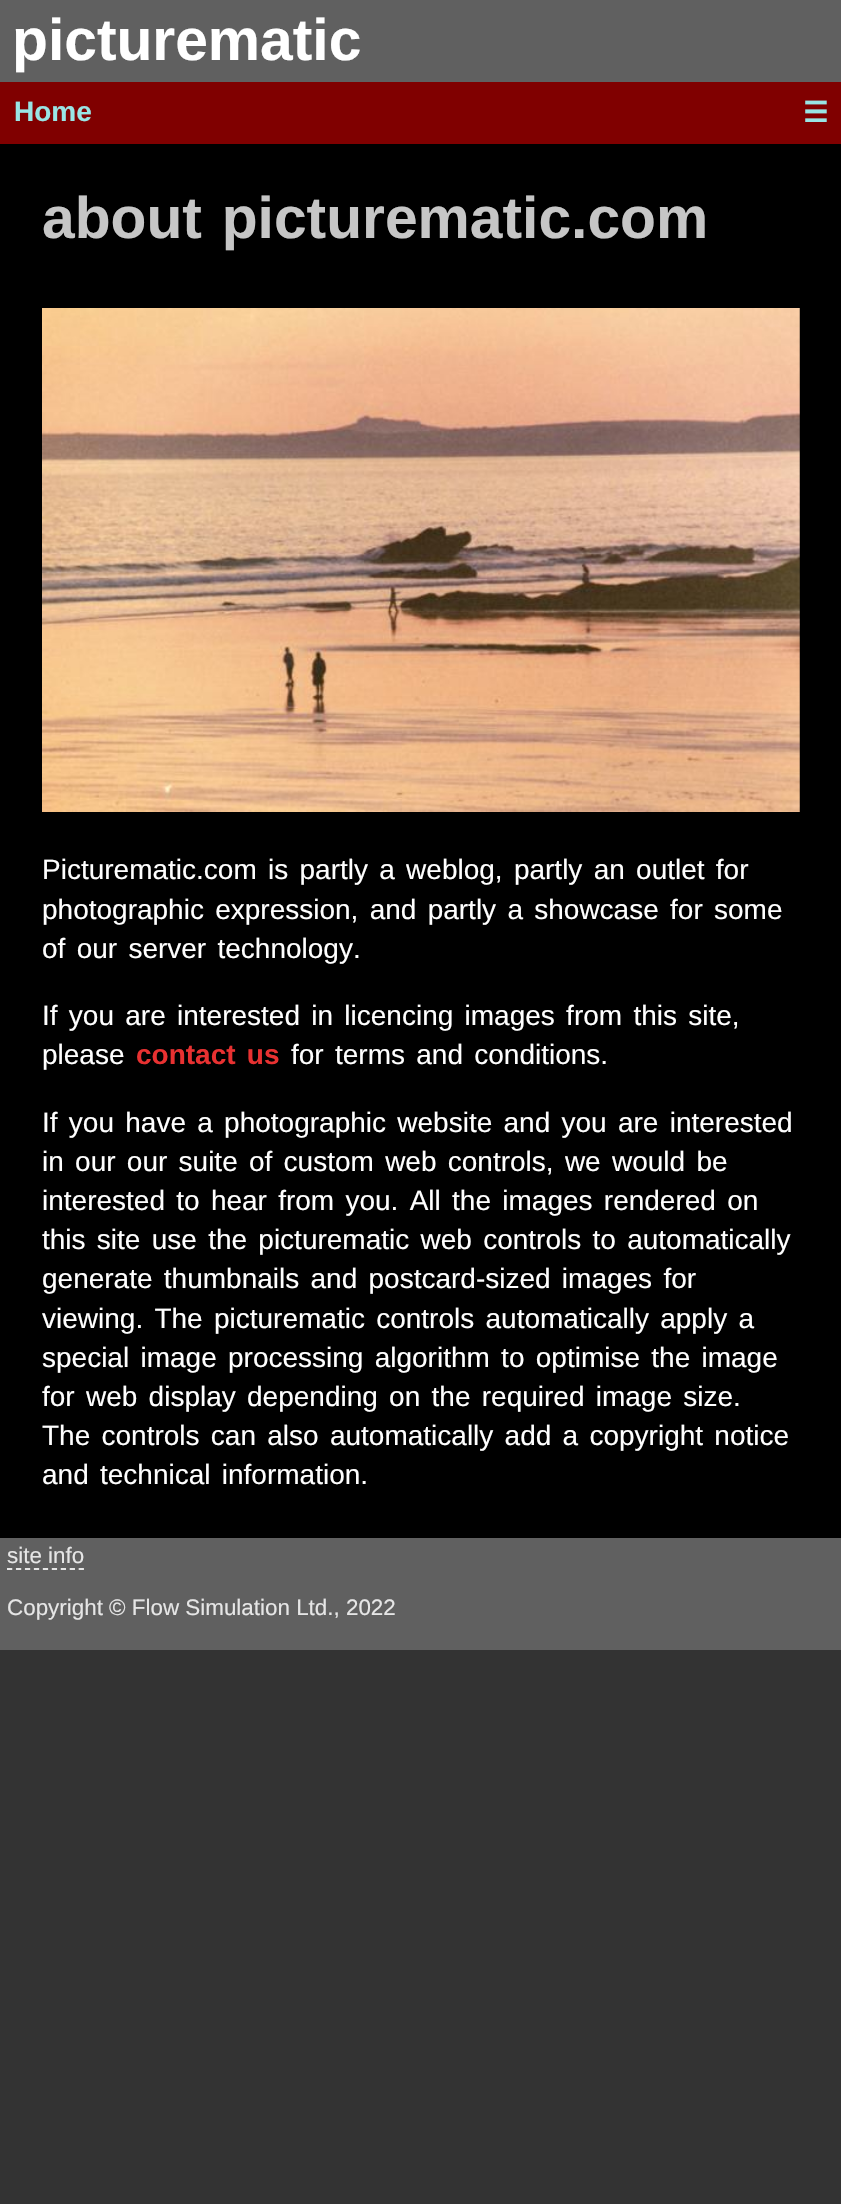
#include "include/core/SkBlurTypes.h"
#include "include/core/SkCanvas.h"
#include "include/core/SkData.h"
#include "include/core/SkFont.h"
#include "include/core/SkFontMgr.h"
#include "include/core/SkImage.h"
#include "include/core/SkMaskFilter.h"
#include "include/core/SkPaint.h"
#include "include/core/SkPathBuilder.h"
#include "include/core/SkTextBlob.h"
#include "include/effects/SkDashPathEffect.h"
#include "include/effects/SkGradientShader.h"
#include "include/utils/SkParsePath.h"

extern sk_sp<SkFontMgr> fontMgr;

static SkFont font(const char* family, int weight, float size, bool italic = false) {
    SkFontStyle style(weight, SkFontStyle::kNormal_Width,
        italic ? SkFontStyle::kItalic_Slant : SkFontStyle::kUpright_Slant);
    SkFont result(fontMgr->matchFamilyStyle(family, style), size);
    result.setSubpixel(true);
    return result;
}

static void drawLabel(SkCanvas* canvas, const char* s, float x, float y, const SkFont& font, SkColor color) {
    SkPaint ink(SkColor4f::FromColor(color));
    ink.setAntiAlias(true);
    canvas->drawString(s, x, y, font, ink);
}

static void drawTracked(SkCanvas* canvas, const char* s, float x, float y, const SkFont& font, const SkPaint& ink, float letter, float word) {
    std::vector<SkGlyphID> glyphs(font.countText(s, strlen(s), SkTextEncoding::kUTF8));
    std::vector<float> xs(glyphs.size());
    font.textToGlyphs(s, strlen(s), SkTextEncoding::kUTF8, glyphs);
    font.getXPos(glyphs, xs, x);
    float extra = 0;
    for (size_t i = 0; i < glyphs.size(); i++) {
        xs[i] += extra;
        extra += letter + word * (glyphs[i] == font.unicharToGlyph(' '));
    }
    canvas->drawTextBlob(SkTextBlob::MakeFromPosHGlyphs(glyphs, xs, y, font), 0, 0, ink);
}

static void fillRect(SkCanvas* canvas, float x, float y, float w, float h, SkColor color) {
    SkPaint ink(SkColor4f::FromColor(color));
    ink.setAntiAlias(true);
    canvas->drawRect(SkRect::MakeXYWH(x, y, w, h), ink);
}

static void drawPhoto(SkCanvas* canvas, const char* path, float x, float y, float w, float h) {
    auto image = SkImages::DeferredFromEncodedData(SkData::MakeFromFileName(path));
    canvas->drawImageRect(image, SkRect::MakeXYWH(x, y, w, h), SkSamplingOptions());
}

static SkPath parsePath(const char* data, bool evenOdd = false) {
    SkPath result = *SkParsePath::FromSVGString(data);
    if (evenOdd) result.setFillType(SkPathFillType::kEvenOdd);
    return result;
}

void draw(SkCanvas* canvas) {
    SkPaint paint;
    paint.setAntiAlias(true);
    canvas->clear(0xFF333333);
    fillRect(canvas, 0, 144, 841, 1394, 0xFF000000);
    fillRect(canvas, 0, 0, 841, 82, 0xFF606060);
    SkFont font1 = font("Liberation Sans", 700, 58.75f);
    drawLabel(canvas, "picturematic", 12, 60, font1, 0xFFFFFFFF);
    fillRect(canvas, 0, 82, 841, 62, 0xFF800000);
    SkFont font2 = font("Liberation Sans", 700, 28);
    drawLabel(canvas, "Home", 14, 121, font2, 0xFF99E5E5);
    SkFont font3 = font("DejaVu Sans", 700, 28);
    drawLabel(canvas, "☰", 803, 122, font3, 0xFF99E5E5);
    paint.setColor(0xFFC6C6C6);
    drawTracked(canvas, "about picturematic.com", 42, 238, font1, paint, 0, 3.5f);
    drawPhoto(canvas, "assets/img1.png", 42, 308, 758, 504);
    SkFont font4 = font("Liberation Sans", 400, 28);
    paint.setColor(0xFFFFFFFF);
    drawTracked(canvas, "Picturematic.com is partly a weblog, partly an outlet for", 42, 879, font4, paint, 0, 3.5f);
    drawTracked(canvas, "photographic expression, and partly a showcase for some", 42, 919, font4, paint, 0, 3.5f);
    drawTracked(canvas, "of our server technology.", 42, 958, font4, paint, 0, 3.5f);
    drawTracked(canvas, "If you are interested in licencing images from this site,", 42, 1025, font4, paint, 0, 3.5f);
    drawLabel(canvas, "please", 42, 1064, font4, 0xFFFFFFFF);
    paint.setColor(0xFFE83131);
    drawTracked(canvas, "contact us", 136, 1064, font2, paint, 0, 3.5f);
    paint.setColor(0xFFFFFFFF);
    drawTracked(canvas, "for terms and conditions.", 291, 1064, font4, paint, 0, 3.5f);
    drawTracked(canvas, "If you have a photographic website and you are interested", 42, 1132, font4, paint, 0, 3.5f);
    drawTracked(canvas, "in our our suite of custom web controls, we would be", 42, 1171, font4, paint, 0, 3.5f);
    drawTracked(canvas, "interested to hear from you. All the images rendered on", 42, 1210, font4, paint, 0, 3.5f);
    drawTracked(canvas, "this site use the picturematic web controls to automatically", 42, 1249, font4, paint, 0, 3.5f);
    drawTracked(canvas, "generate thumbnails and postcard-sized images for", 42, 1288, font4, paint, 0, 3.5f);
    drawTracked(canvas, "viewing. The picturematic controls automatically apply a", 42, 1328, font4, paint, 0, 3.5f);
    drawTracked(canvas, "special image processing algorithm to optimise the image", 42, 1367, font4, paint, 0, 3.5f);
    drawTracked(canvas, "for web display depending on the required image size.", 42, 1406, font4, paint, 0, 3.5f);
    drawTracked(canvas, "The controls can also automatically add a copyright notice", 42, 1445, font4, paint, 0, 3.5f);
    drawTracked(canvas, "and technical information.", 42, 1484, font4, paint, 0, 3.5f);
    fillRect(canvas, 0, 1538, 841, 112, 0xFF606060);
    SkFont font5 = font("Liberation Sans", 400, 22.4f);
    drawLabel(canvas, "site info", 7, 1563, font5, 0xFFE6E6E6);
    paint.setStroke(true);
    paint.setStrokeWidth(1.8f);
    paint.setColor(0xFFE6E6E6);
    paint.setPathEffect(SkDashPathEffect::Make({{5.25f, 3.71f}}, 0));
    canvas->drawPath(parsePath("M7 1569H84"), paint);
    paint.setPathEffect(nullptr);
    drawLabel(canvas, "Copyright © Flow Simulation Ltd., 2022", 7, 1615, font5, 0xFFE6E6E6);
}
